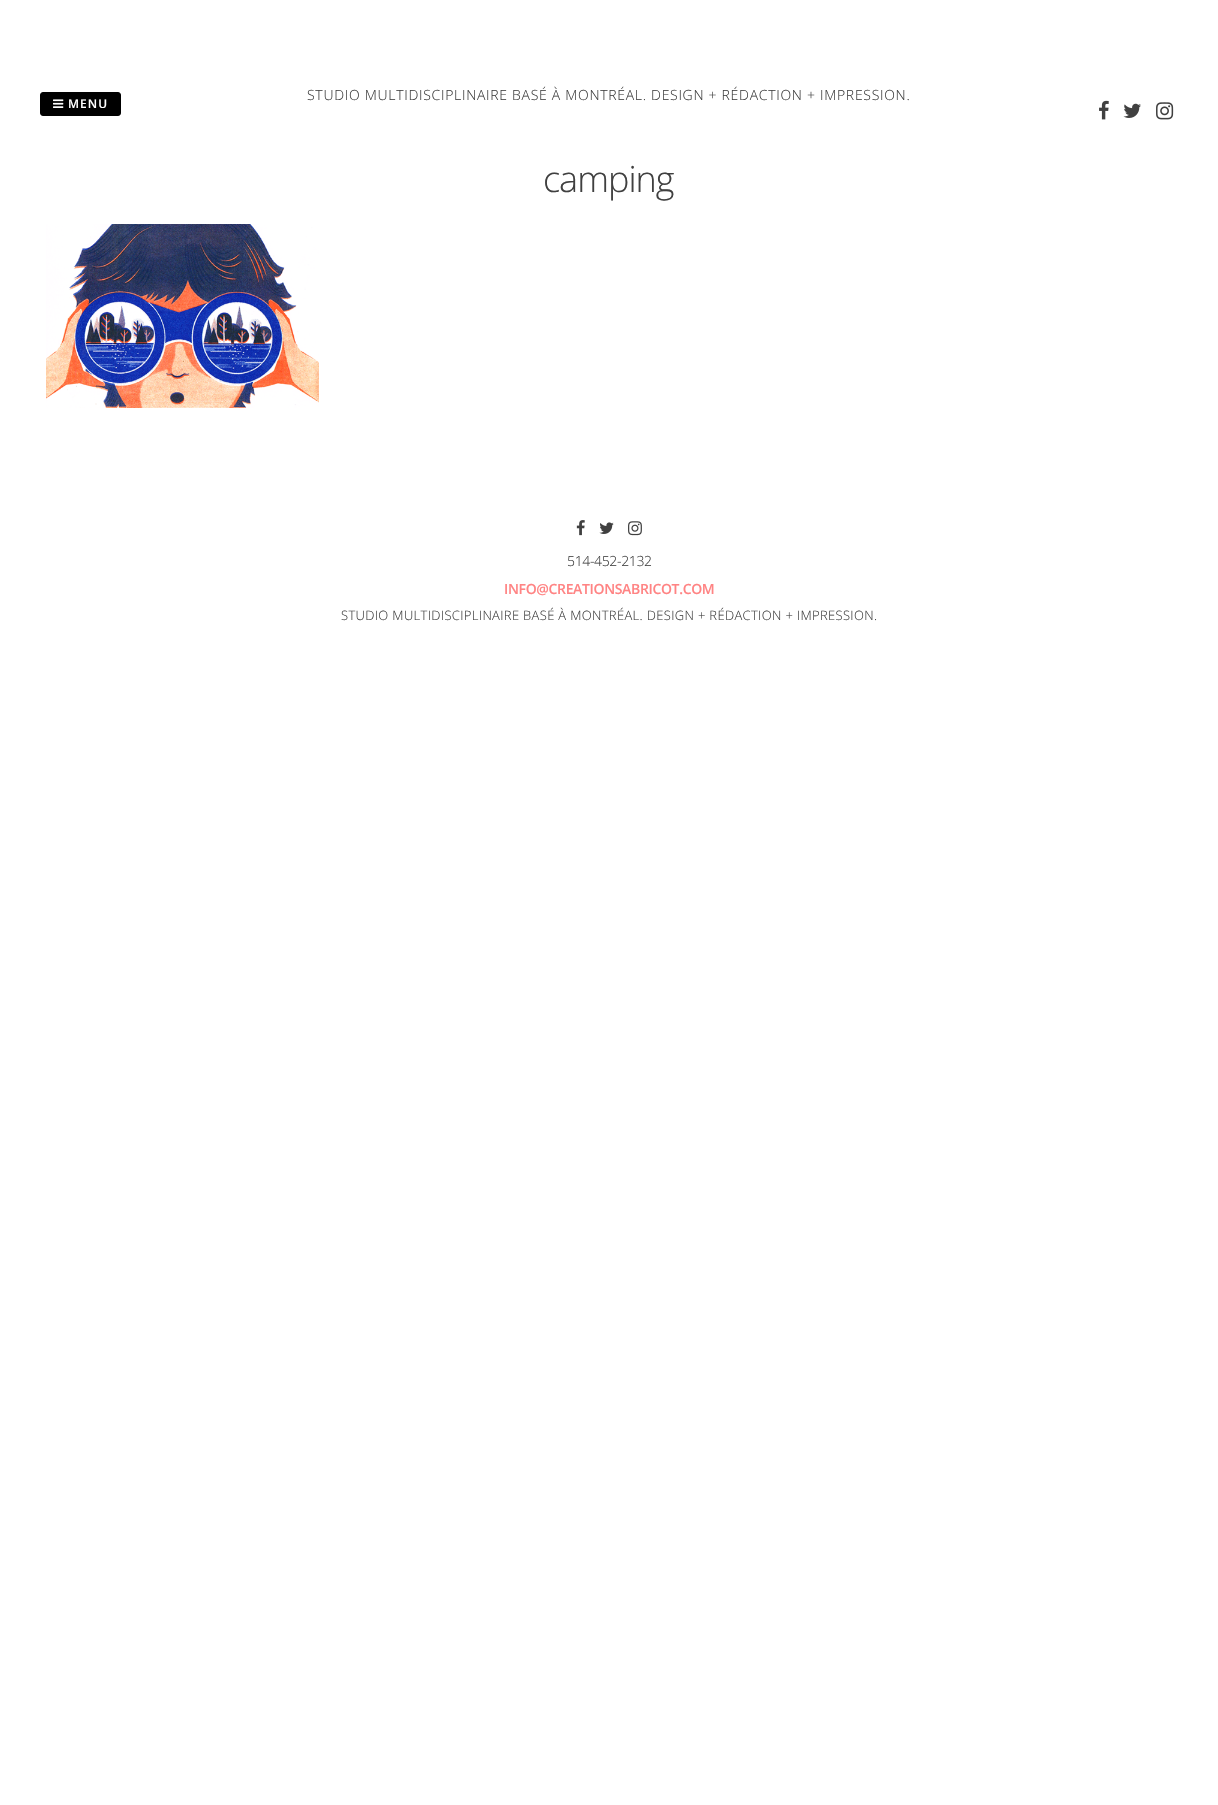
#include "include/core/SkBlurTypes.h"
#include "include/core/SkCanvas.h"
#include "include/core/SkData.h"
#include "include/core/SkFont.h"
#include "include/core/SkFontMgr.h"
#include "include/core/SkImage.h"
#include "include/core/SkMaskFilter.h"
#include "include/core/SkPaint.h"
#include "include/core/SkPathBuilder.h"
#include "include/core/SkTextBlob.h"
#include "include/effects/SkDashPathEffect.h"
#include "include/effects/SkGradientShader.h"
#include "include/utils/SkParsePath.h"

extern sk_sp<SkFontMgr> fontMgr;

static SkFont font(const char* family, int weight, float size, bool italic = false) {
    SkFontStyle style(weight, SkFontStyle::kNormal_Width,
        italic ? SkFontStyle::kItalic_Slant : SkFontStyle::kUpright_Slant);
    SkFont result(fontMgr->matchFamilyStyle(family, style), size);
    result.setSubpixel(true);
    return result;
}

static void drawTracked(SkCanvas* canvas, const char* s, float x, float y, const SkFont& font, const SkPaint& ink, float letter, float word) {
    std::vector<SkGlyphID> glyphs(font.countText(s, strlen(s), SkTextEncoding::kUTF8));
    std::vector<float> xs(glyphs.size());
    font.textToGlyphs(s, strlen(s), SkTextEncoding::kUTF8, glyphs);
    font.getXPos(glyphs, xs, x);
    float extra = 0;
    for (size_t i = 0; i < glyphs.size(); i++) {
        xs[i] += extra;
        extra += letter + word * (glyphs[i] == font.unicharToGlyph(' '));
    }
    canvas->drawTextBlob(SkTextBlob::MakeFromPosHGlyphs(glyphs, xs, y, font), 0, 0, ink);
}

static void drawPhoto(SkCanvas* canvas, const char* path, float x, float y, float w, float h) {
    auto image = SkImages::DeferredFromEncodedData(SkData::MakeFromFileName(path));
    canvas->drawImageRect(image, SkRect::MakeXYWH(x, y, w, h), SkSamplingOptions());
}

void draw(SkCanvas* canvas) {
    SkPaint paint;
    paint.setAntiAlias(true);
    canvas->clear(0xFFFFFFFF);
    SkFont font1 = font("Open Sans", 300, 14);
    paint.setColor(0xFF404040);
    drawTracked(canvas, "STUDIO MULTIDISCIPLINAIRE BASÉ À MONTRÉAL. DESIGN + RÉDACTION + IMPRESSION.", 307, 100, font1, paint, 0.7f, 0);
    paint.setColor(0xFF000000);
    canvas->drawRoundRect(SkRect::MakeXYWH(40.5f, 92.5f, 80, 23), 2.5f, 2.5f, paint);
    paint.setStroke(true);
    paint.setStrokeWidth(1);
    canvas->drawRoundRect(SkRect::MakeXYWH(40.5f, 92.5f, 80, 23), 2.5f, 2.5f, paint);
    drawPhoto(canvas, "assets/img1.png", 53, 99, 11, 9);
    SkFont font2 = font("Open Sans", 600, 12);
    paint.setStroke(false);
    paint.setColor(0xFFFFFFFF);
    drawTracked(canvas, "MENU", 68, 108, font2, paint, 1, 0);
    drawPhoto(canvas, "assets/img2.png", 1099, 100, 10, 20);
    drawPhoto(canvas, "assets/img3.png", 1123, 103, 18, 15);
    drawPhoto(canvas, "assets/img4.png", 1156, 102, 18, 18);
    SkFont font3 = font("Open Sans", 300, 36);
    paint.setColor(0xFF404040);
    drawTracked(canvas, "camping", 543, 192, font3, paint, -1, 0);
    drawPhoto(canvas, "assets/img5.png", 46, 224, 273, 184);
    drawPhoto(canvas, "assets/img6.png", 576, 520, 9, 16);
    drawPhoto(canvas, "assets/img7.png", 599, 522, 15, 12);
    drawPhoto(canvas, "assets/img8.png", 628, 521, 14, 15);
    drawTracked(canvas, "514-452-2132", 567, 566, font1, paint, -0.35f, 0);
    SkFont font4 = font("Open Sans", 600, 14);
    paint.setColor(0xFFFF8484);
    drawTracked(canvas, "INFO@CREATIONSABRICOT.COM", 504, 594, font4, paint, -0.35f, 0);
    SkFont font5 = font("Open Sans", 300, 13);
    paint.setColor(0xFF404040);
    drawTracked(canvas, "STUDIO MULTIDISCIPLINAIRE BASÉ À MONTRÉAL. DESIGN + RÉDACTION + IMPRESSION.", 341, 620, font5, paint, 0.33f, 0);
}
